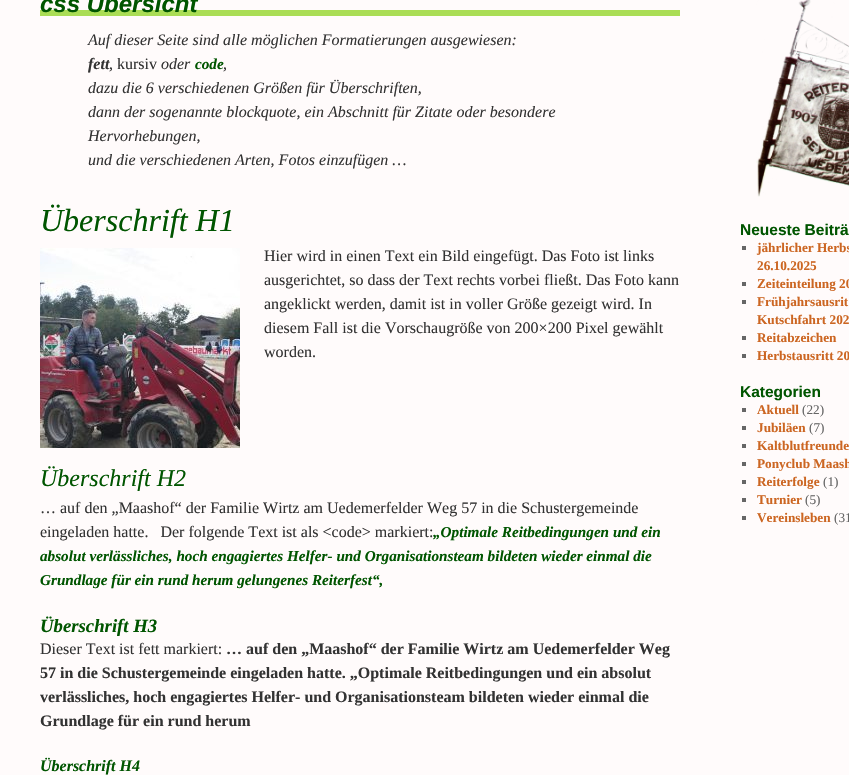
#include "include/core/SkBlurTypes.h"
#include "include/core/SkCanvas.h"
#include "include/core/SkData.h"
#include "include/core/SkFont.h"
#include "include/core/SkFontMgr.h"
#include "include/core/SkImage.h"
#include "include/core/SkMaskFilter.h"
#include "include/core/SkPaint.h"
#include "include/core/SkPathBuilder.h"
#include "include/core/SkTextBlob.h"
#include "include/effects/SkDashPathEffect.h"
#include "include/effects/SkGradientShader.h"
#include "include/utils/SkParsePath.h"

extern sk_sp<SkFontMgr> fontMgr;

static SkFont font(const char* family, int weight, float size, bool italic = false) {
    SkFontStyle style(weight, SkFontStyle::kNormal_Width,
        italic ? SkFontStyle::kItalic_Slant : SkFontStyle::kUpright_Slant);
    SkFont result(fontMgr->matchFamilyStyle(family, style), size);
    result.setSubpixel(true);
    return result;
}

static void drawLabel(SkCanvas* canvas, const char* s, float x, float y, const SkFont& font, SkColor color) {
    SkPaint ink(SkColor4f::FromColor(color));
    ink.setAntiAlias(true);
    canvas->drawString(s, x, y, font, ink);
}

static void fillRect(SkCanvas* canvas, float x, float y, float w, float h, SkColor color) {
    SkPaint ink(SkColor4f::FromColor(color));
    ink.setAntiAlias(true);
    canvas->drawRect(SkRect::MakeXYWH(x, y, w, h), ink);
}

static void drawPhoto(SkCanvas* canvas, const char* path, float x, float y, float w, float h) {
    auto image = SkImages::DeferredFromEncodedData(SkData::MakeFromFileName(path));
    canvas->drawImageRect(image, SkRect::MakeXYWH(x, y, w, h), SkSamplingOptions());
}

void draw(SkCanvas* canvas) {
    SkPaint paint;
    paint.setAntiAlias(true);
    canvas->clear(0xFFFFFBFB);
    fillRect(canvas, 40, 10, 640, 6, 0xFFAADD55);
    SkFont font1 = font("Liberation Sans", 700, 24, true);
    drawLabel(canvas, "css Übersicht", 40, 12, font1, 0xFF005500);
    SkFont font2 = font("Liberation Serif", 400, 16, true);
    drawLabel(canvas, "Auf dieser Seite sind alle möglichen Formatierungen ausgewiesen:", 88, 45, font2, 0xFF333333);
    SkFont font3 = font("Liberation Serif", 700, 16, true);
    drawLabel(canvas, "fett", 88, 69, font3, 0xFF333333);
    drawLabel(canvas, ",", 109, 69, font2, 0xFF333333);
    SkFont font4 = font("Liberation Serif", 400, 16);
    drawLabel(canvas, "kursiv", 117, 69, font4, 0xFF333333);
    drawLabel(canvas, "oder", 161, 69, font2, 0xFF333333);
    SkFont font5 = font("Liberation Serif", 700, 15.2f, true);
    drawLabel(canvas, "code", 195, 69, font5, 0xFF005500);
    drawLabel(canvas, ",", 223, 69, font2, 0xFF333333);
    drawLabel(canvas, "dazu die 6 verschiedenen Größen für Überschriften,", 88, 93, font2, 0xFF333333);
    drawLabel(canvas, "dann der sogenannte blockquote, ein Abschnitt für Zitate oder besondere", 88, 117, font2, 0xFF333333);
    drawLabel(canvas, "Hervorhebungen,", 88, 141, font2, 0xFF333333);
    drawLabel(canvas, "und die verschiedenen Arten, Fotos einzufügen …", 88, 165, font2, 0xFF333333);
    SkFont font6 = font("Liberation Serif", 400, 32, true);
    drawLabel(canvas, "Überschrift H1", 40, 231, font6, 0xFF005500);
    drawPhoto(canvas, "assets/img1.png", 40, 248, 200, 200);
    drawLabel(canvas, "Hier wird in einen Text ein Bild eingefügt. Das Foto ist links", 264, 261, font4, 0xFF333333);
    drawLabel(canvas, "ausgerichtet, so dass der Text rechts vorbei fließt. Das Foto kann", 264, 285, font4, 0xFF333333);
    drawLabel(canvas, "angeklickt werden, damit ist in voller Größe gezeigt wird. In", 264, 309, font4, 0xFF333333);
    drawLabel(canvas, "diesem Fall ist die Vorschaugröße von 200×200 Pixel gewählt", 264, 333, font4, 0xFF333333);
    drawLabel(canvas, "worden.", 264, 357, font4, 0xFF333333);
    SkFont font7 = font("Liberation Serif", 400, 24, true);
    drawLabel(canvas, "Überschrift H2", 40, 486, font7, 0xFF005500);
    drawLabel(canvas, "… auf den „Maashof“ der Familie Wirtz am Uedemerfelder Weg 57 in die Schustergemeinde", 40, 513, font4, 0xFF333333);
    drawLabel(canvas, "eingeladen hatte.   Der folgende Text ist als <code> markiert:", 40, 537, font4, 0xFF333333);
    drawLabel(canvas, "„Optimale Reitbedingungen und ein", 433, 537, font5, 0xFF005500);
    drawLabel(canvas, "absolut verlässliches, hoch engagiertes Helfer- und Organisationsteam bildeten wieder einmal die", 40, 561, font5, 0xFF005500);
    drawLabel(canvas, "Grundlage für ein rund herum gelungenes Reiterfest“,", 40, 585, font5, 0xFF005500);
    SkFont font8 = font("Liberation Serif", 700, 18.75f, true);
    drawLabel(canvas, "Überschrift H3", 40, 632, font8, 0xFF005500);
    drawLabel(canvas, "Dieser Text ist fett markiert:", 40, 654, font4, 0xFF333333);
    SkFont font9 = font("Liberation Serif", 700, 16);
    drawLabel(canvas, "… auf den „Maashof“ der Familie Wirtz am Uedemerfelder Weg", 226, 654, font9, 0xFF333333);
    drawLabel(canvas, "57 in die Schustergemeinde eingeladen hatte. „Optimale Reitbedingungen und ein absolut", 40, 678, font9, 0xFF333333);
    drawLabel(canvas, "verlässliches, hoch engagiertes Helfer- und Organisationsteam bildeten wieder einmal die", 40, 702, font9, 0xFF333333);
    drawLabel(canvas, "Grundlage für ein rund herum", 40, 726, font9, 0xFF333333);
    drawLabel(canvas, "Überschrift H4", 40, 771, font3, 0xFF005500);
    drawPhoto(canvas, "assets/img2.png", 756, 0, 93, 197);
    SkFont font10 = font("Liberation Sans", 700, 15.5f);
    drawLabel(canvas, "Neueste Beiträ", 740, 235, font10, 0xFF005500);
    fillRect(canvas, 742, 246, 4, 4, 0xFF666666);
    SkFont font11 = font("Liberation Serif", 700, 13.25f);
    drawLabel(canvas, "jährlicher Herbs", 757, 252, font11, 0xFFCC6622);
    drawLabel(canvas, "26.10.2025", 757, 270, font11, 0xFFCC6622);
    fillRect(canvas, 742, 282, 4, 4, 0xFF666666);
    drawLabel(canvas, "Zeiteinteilung 20", 757, 288, font11, 0xFFCC6622);
    fillRect(canvas, 742, 300, 4, 4, 0xFF666666);
    drawLabel(canvas, "Frühjahrsausrit", 757, 306, font11, 0xFFCC6622);
    drawLabel(canvas, "Kutschfahrt 202", 757, 324, font11, 0xFFCC6622);
    fillRect(canvas, 742, 336, 4, 4, 0xFF666666);
    drawLabel(canvas, "Reitabzeichen", 757, 342, font11, 0xFFCC6622);
    fillRect(canvas, 742, 354, 4, 4, 0xFF666666);
    drawLabel(canvas, "Herbstausritt 20", 757, 360, font11, 0xFFCC6622);
    drawLabel(canvas, "Kategorien", 740, 397, font10, 0xFF005500);
    fillRect(canvas, 742, 408, 4, 4, 0xFF666666);
    drawLabel(canvas, "Aktuell", 757, 414, font11, 0xFFCC6622);
    SkFont font12 = font("Liberation Serif", 400, 13.25f);
    drawLabel(canvas, "(22)", 802, 414, font12, 0xFF666666);
    fillRect(canvas, 742, 426, 4, 4, 0xFF666666);
    drawLabel(canvas, "Jubiläen", 757, 432, font11, 0xFFCC6622);
    drawLabel(canvas, "(7)", 809, 432, font12, 0xFF666666);
    fillRect(canvas, 742, 444, 4, 4, 0xFF666666);
    drawLabel(canvas, "Kaltblutfreunde", 757, 450, font11, 0xFFCC6622);
    fillRect(canvas, 742, 462, 4, 4, 0xFF666666);
    drawLabel(canvas, "Ponyclub Maash", 757, 468, font11, 0xFFCC6622);
    fillRect(canvas, 742, 480, 4, 4, 0xFF666666);
    drawLabel(canvas, "Reiterfolge", 757, 486, font11, 0xFFCC6622);
    drawLabel(canvas, "(1)", 823, 486, font12, 0xFF666666);
    fillRect(canvas, 742, 498, 4, 4, 0xFF666666);
    drawLabel(canvas, "Turnier", 757, 504, font11, 0xFFCC6622);
    drawLabel(canvas, "(5)", 805, 504, font12, 0xFF666666);
    fillRect(canvas, 742, 516, 4, 4, 0xFF666666);
    drawLabel(canvas, "Vereinsleben", 757, 522, font11, 0xFFCC6622);
    drawLabel(canvas, "(31", 834, 522, font12, 0xFF666666);
}
